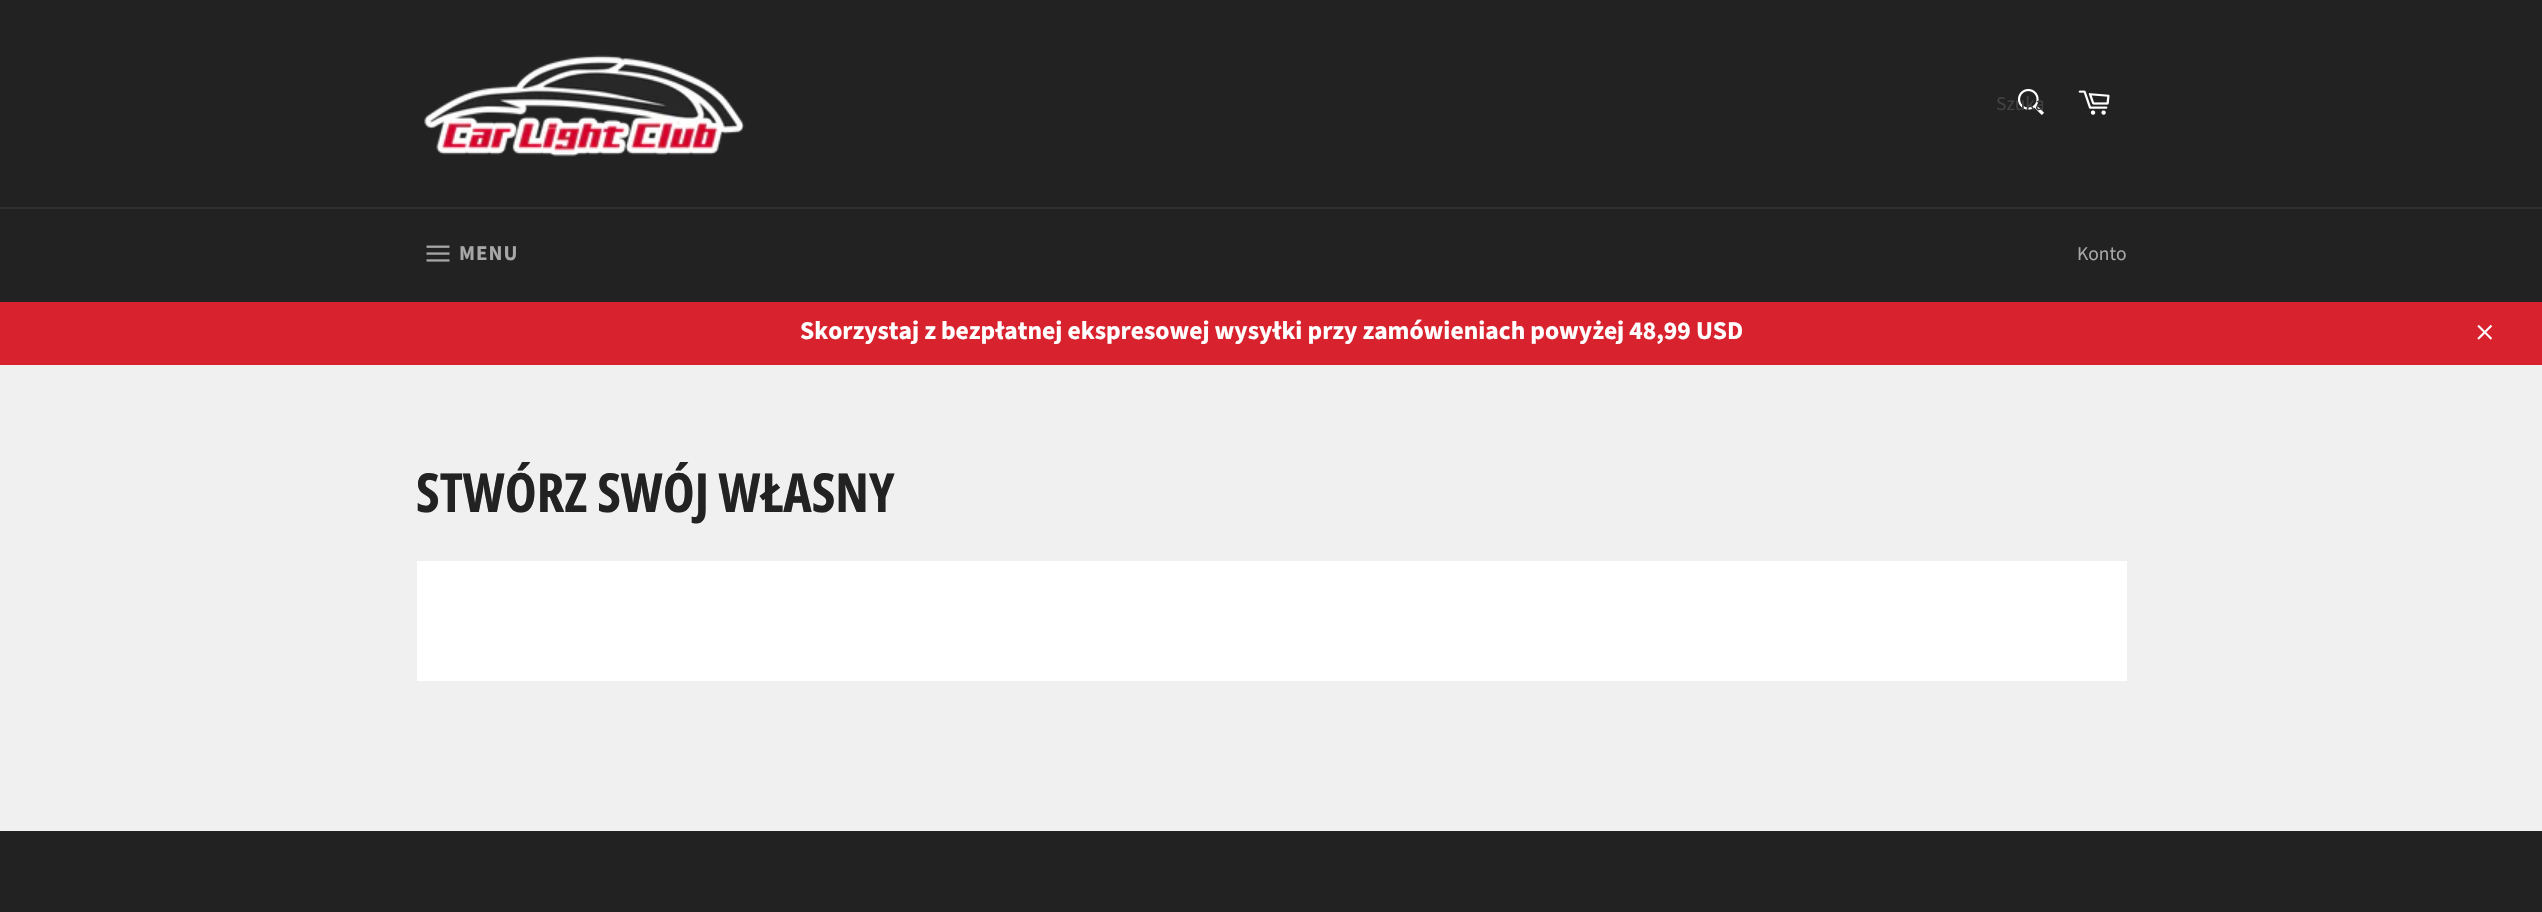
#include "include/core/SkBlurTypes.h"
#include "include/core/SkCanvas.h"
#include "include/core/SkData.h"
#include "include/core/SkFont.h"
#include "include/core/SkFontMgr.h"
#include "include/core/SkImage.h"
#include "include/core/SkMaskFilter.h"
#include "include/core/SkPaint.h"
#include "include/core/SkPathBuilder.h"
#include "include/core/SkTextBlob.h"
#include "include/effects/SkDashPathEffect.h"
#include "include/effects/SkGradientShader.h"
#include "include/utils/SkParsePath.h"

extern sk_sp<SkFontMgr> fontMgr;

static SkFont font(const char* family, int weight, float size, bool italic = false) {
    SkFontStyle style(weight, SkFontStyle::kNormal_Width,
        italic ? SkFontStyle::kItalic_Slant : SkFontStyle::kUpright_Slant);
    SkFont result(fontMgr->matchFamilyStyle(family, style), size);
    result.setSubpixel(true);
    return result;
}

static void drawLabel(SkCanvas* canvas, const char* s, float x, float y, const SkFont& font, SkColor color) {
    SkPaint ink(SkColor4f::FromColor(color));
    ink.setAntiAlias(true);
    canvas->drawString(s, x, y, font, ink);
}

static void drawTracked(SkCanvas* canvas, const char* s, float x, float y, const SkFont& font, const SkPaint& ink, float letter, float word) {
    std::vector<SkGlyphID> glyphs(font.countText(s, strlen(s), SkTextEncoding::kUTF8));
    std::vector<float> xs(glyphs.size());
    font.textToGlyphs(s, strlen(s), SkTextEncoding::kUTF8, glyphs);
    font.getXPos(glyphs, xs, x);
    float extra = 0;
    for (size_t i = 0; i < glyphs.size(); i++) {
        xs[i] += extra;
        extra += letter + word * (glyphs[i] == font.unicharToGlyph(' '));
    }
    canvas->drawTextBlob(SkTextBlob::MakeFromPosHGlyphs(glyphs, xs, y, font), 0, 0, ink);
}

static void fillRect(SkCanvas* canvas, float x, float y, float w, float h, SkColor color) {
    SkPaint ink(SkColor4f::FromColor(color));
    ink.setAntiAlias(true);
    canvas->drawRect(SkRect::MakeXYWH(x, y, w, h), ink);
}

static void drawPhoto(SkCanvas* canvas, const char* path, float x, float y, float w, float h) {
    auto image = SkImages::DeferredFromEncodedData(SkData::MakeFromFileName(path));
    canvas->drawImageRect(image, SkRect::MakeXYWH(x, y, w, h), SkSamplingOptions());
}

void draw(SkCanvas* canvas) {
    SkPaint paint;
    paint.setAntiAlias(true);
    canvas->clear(0xFFF0F0F0);
    fillRect(canvas, 0, 0, 2542, 207, 0xFF222222);
    drawPhoto(canvas, "assets/img1.png", 424, 55, 321, 102);
    drawPhoto(canvas, "assets/img2.png", 2017, 88, 27, 27);
    canvas->save();
    canvas->clipRect(SkRect::MakeXYWH(1995, 90, 48, 27));
    SkFont font1 = font("Source Sans Pro", 400, 19.5f);
    drawLabel(canvas, "Szuka", 1996, 110, font1, 0xFF424242);
    canvas->restore();
    drawPhoto(canvas, "assets/img3.png", 2078, 90, 32, 25);
    fillRect(canvas, 0, 209, 2542, 93, 0xFF222222);
    fillRect(canvas, 0, 207, 2542, 2, 0xFF2F2F2F);
    drawPhoto(canvas, "assets/img4.png", 426, 245, 24, 17);
    SkFont font2 = font("Source Sans Pro", 700, 21);
    paint.setColor(0xFFA7A7A7);
    drawTracked(canvas, "MENU", 459, 260, font2, paint, 1, 0);
    drawLabel(canvas, "Konto", 2077, 260, font1, 0xFFA7A7A7);
    fillRect(canvas, 0, 302, 2542, 63, 0xFFD8232F);
    SkFont font3 = font("Source Sans Pro", 700, 25.5f);
    drawLabel(canvas, "Skorzystaj z bezpłatnej ekspresowej wysyłki przy zamówieniach powyżej 48,99 USD", 800, 339, font3, 0xFFFFFFFF);
    drawPhoto(canvas, "assets/img5.png", 2477, 324, 16, 16);
    SkFont font4 = font("Open Sans Condensed", 700, 54);
    drawLabel(canvas, "STWÓRZ SWÓJ WŁASNY", 416, 512, font4, 0xFF222222);
    fillRect(canvas, 417, 561, 1710, 120, 0xFFFFFFFF);
    fillRect(canvas, 0, 831, 2542, 81, 0xFF222222);
}
